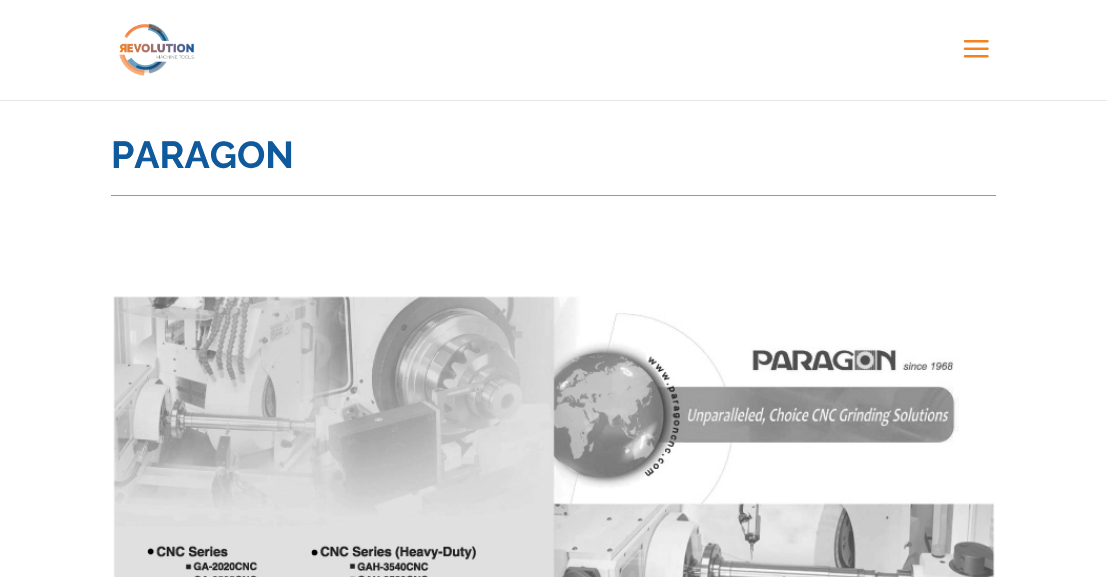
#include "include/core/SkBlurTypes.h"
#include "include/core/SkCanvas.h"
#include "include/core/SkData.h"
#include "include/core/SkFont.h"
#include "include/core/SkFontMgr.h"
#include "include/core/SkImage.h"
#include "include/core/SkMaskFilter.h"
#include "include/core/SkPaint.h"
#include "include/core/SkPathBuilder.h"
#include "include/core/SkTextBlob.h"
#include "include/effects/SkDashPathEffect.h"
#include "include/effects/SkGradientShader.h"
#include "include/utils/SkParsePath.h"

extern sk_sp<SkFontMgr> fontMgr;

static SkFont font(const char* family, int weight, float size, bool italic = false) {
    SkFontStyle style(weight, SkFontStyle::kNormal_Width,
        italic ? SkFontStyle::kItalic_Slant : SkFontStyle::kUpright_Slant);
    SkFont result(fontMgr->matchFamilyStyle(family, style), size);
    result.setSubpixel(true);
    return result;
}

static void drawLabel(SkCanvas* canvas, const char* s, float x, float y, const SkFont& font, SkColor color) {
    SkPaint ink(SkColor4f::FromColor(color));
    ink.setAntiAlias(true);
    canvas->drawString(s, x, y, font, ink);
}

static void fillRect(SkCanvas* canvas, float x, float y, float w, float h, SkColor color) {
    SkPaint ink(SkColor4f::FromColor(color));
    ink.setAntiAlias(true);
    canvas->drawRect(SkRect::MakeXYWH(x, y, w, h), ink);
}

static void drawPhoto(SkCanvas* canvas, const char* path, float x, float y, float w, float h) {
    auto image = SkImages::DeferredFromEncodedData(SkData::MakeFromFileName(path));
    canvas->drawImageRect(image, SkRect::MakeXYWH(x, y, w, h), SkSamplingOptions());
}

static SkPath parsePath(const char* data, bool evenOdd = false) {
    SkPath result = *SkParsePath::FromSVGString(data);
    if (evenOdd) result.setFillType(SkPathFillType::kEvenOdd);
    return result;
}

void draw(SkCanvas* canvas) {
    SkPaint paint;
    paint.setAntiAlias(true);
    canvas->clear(0xFFFFFFFF);
    paint.setColor(0xFFE6E6E6);
    canvas->drawPath(parsePath("M0 100V101H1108V1V100Z"), paint);
    drawPhoto(canvas, "assets/img1.png", 119, 23, 76, 53);
    drawPhoto(canvas, "assets/img2.png", 963, 40, 26, 18);
    SkFont font1 = font("Raleway", 700, 37.5f);
    drawLabel(canvas, "PARAGON", 111, 168, font1, 0xFF0E5A9D);
    fillRect(canvas, 111, 195, 885, 1, 0xFFF58220);
    drawPhoto(canvas, "assets/img3.png", 113, 296, 882, 281);
    drawPhoto(canvas, "assets/img4.png", 114, 296, 881, 281);
}
